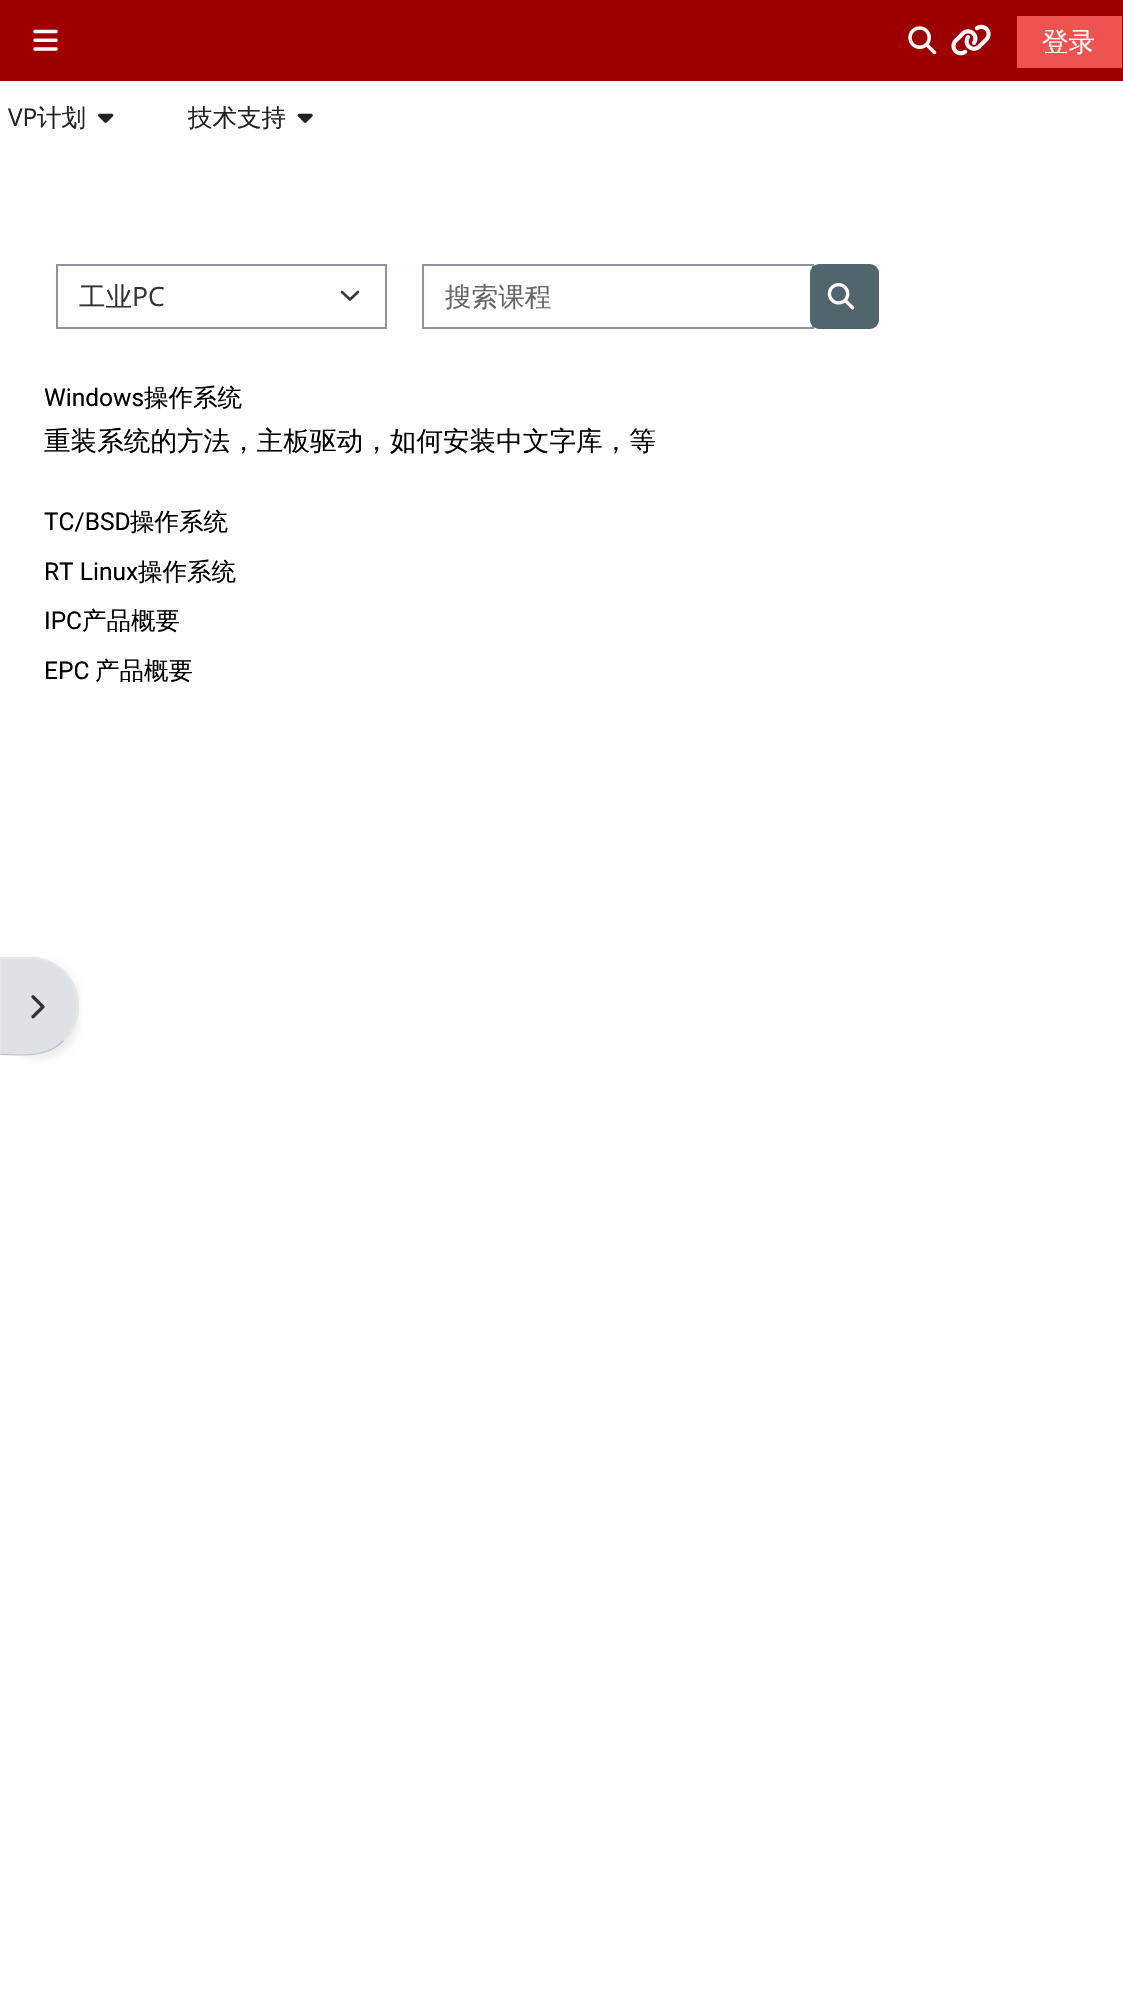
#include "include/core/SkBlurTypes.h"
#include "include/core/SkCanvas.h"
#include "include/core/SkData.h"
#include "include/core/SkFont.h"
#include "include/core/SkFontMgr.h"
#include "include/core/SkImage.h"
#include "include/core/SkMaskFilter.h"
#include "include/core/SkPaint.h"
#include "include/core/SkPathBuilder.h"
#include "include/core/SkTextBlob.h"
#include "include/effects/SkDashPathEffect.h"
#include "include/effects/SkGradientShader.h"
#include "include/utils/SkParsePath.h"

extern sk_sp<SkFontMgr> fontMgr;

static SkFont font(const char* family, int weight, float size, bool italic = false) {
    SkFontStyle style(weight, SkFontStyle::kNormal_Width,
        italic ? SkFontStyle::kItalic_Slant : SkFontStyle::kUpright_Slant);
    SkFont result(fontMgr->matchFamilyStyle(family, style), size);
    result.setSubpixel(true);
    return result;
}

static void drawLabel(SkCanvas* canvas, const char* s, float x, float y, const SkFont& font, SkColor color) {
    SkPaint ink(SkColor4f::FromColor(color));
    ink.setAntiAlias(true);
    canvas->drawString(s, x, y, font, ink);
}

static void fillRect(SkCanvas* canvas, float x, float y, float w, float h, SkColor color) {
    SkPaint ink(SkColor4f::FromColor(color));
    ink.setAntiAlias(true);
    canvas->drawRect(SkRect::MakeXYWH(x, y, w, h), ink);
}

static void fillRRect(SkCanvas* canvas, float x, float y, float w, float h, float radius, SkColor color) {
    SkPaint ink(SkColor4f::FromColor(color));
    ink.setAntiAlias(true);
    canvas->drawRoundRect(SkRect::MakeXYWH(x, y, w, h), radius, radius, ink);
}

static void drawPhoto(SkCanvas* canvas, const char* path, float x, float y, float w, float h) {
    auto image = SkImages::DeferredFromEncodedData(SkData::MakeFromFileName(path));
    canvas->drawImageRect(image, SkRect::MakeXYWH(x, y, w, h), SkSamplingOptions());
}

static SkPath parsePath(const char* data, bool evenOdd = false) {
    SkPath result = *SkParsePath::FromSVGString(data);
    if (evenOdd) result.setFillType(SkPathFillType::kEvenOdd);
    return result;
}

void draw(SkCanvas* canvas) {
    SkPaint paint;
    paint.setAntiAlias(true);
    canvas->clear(0xFFFFFFFF);
    fillRect(canvas, 0, 0, 1123, 81, 0xFF9E0000);
    drawPhoto(canvas, "assets/img1.png", 33, 29, 25, 22);
    drawPhoto(canvas, "assets/img2.png", 908, 26, 29, 29);
    drawPhoto(canvas, "assets/img3.png", 951, 24, 40, 32);
    fillRect(canvas, 1017, 16, 105, 52, 0xFFEF5350);
    SkFont font1 = font("WenQuanYi Zen Hei", 500, 26.6f);
    drawLabel(canvas, "登录", 1042, 51, font1, 0xFFFFFFFF);
    SkFont font2 = font("Open Sans", 400, 24.5f);
    drawLabel(canvas, "VP", 8, 126, font2, 0xFF222222);
    SkFont font3 = font("WenQuanYi Zen Hei", 500, 24.5f);
    drawLabel(canvas, "计划", 37, 126, font3, 0xFF222222);
    drawPhoto(canvas, "assets/img4.png", 98, 113, 16, 10);
    drawLabel(canvas, "技术支持", 188, 126, font3, 0xFF222222);
    drawPhoto(canvas, "assets/img5.png", 297, 113, 16, 10);
    paint.setStroke(true);
    paint.setStrokeWidth(2.6f);
    paint.setStrokeCap(SkPaint::kRound_Cap);
    paint.setStrokeJoin(SkPaint::kRound_Join);
    paint.setColor(0xFF343A40);
    canvas->drawPath(parsePath("M342 292L350 299.5L358 292"), paint);
    paint.setStrokeWidth(2);
    paint.setStrokeCap(SkPaint::kButt_Cap);
    paint.setStrokeJoin(SkPaint::kMiter_Join);
    paint.setColor(0xFF8F959E);
    canvas->drawRect(SkRect::MakeXYWH(57, 265, 329, 63), paint);
    drawLabel(canvas, "工业", 79, 306, font1, 0xFF333333);
    SkFont font4 = font("Open Sans", 400, 26.6f);
    drawLabel(canvas, "PC", 132, 306, font4, 0xFF333333);
    canvas->drawRect(SkRect::MakeXYWH(423, 265, 390, 63), paint);
    drawLabel(canvas, "搜索课程", 445, 306, font1, 0xFF666666);
    fillRRect(canvas, 810, 264, 69, 65, 9, 0xFF51666C);
    drawPhoto(canvas, "assets/img6.png", 827, 283, 28, 27);
    SkFont font5 = font("Roboto", 400, 24.5f);
    drawLabel(canvas, "Windows", 44, 406, font5, 0xFF000000);
    drawLabel(canvas, "操作系统", 144, 406, font3, 0xFF000000);
    drawLabel(canvas, "重装系统的方法，主板驱动，如何安装中文字库，等", 44, 450, font1, 0xFF000000);
    drawLabel(canvas, "TC/BSD", 44, 530, font5, 0xFF000000);
    drawLabel(canvas, "操作系统", 130, 530, font3, 0xFF000000);
    drawLabel(canvas, "RT Linux", 44, 580, font5, 0xFF000000);
    drawLabel(canvas, "操作系统", 138, 580, font3, 0xFF000000);
    drawLabel(canvas, "IPC", 44, 629, font5, 0xFF000000);
    drawLabel(canvas, "产品概要", 82, 629, font3, 0xFF000000);
    drawLabel(canvas, "EPC", 44, 679, font5, 0xFF000000);
    drawLabel(canvas, "产品概要", 95, 679, font3, 0xFF000000);
    paint.setStroke(false);
    paint.setColor(0x12000000);
    paint.setMaskFilter(SkMaskFilter::MakeBlur(kNormal_SkBlurStyle, 3.5f));
    canvas->drawRoundRect(SkRect::MakeXYWH(0, 961, 79, 98), 49, 49, paint);
    paint.setMaskFilter(nullptr);
    paint.setColor(0xFFDEE2E6);
    canvas->drawPath(parsePath("M0 957H30C57 957 79 979 79 1006C79 1033 57 1055 30 1055H0Z"), paint);
    paint.setColor(0xFFE6E6E6);
    canvas->drawPath(parsePath("M2 959L0 957H35C46 958 57 964 65 971L63 973C55 964 43 959 30 959Z"), paint);
    canvas->drawPath(parsePath("M79 1011C78 1023 72 1033 64 1041L63 1040C81 1021 82 991 63 973L65 971C72 979 78 990 79 1001Z"), paint);
    paint.setColor(0xFFBFBFBF);
    canvas->drawPath(parsePath("M64 1041C46 1059 23 1055 0 1055L2 1053V1054C24 1054 46 1058 63 1040Z"), paint);
    paint.setColor(0xFFE6E6E6);
    canvas->drawPath(parsePath("M0 957V1055L2 1053V959Z"), paint);
    drawPhoto(canvas, "assets/img7.png", 31, 995, 14, 24);
}
